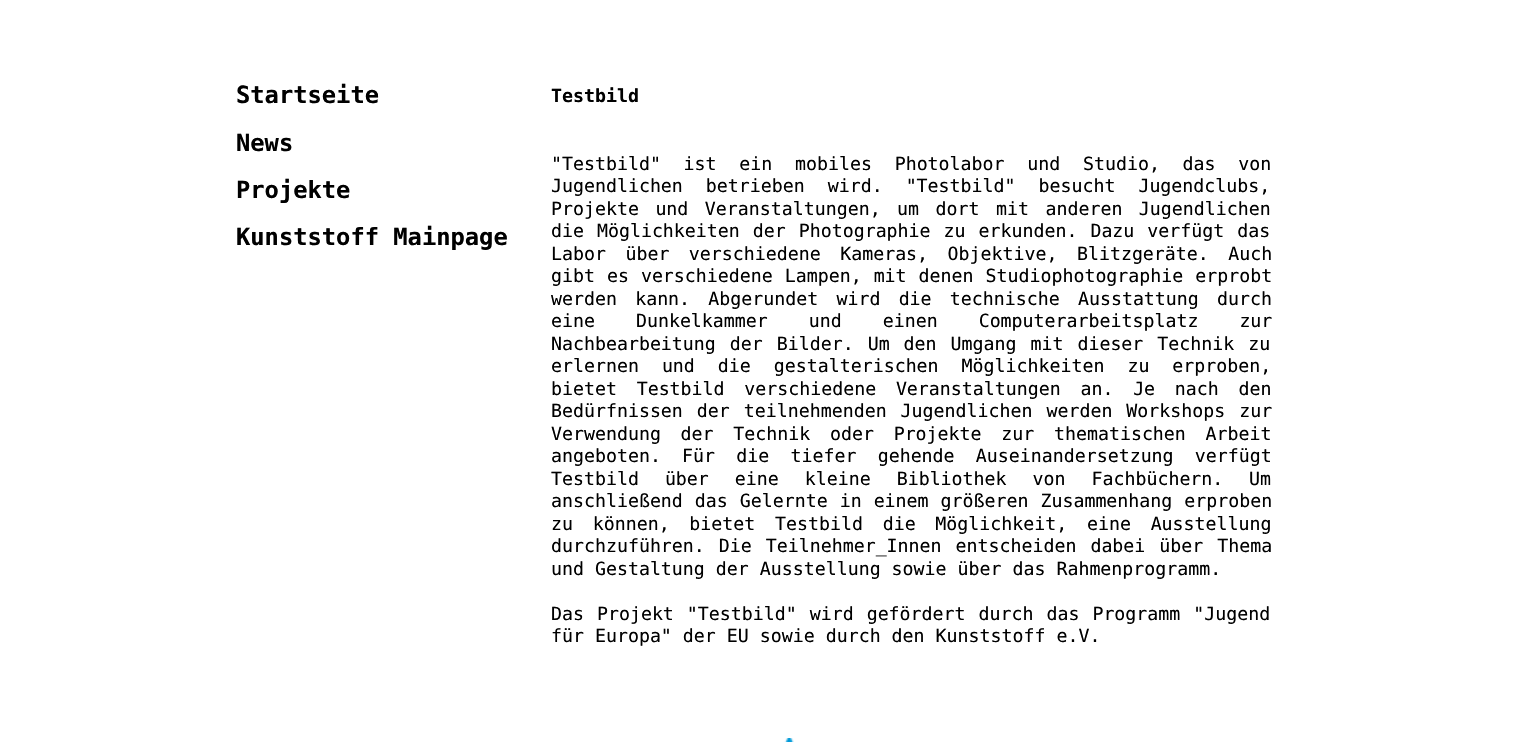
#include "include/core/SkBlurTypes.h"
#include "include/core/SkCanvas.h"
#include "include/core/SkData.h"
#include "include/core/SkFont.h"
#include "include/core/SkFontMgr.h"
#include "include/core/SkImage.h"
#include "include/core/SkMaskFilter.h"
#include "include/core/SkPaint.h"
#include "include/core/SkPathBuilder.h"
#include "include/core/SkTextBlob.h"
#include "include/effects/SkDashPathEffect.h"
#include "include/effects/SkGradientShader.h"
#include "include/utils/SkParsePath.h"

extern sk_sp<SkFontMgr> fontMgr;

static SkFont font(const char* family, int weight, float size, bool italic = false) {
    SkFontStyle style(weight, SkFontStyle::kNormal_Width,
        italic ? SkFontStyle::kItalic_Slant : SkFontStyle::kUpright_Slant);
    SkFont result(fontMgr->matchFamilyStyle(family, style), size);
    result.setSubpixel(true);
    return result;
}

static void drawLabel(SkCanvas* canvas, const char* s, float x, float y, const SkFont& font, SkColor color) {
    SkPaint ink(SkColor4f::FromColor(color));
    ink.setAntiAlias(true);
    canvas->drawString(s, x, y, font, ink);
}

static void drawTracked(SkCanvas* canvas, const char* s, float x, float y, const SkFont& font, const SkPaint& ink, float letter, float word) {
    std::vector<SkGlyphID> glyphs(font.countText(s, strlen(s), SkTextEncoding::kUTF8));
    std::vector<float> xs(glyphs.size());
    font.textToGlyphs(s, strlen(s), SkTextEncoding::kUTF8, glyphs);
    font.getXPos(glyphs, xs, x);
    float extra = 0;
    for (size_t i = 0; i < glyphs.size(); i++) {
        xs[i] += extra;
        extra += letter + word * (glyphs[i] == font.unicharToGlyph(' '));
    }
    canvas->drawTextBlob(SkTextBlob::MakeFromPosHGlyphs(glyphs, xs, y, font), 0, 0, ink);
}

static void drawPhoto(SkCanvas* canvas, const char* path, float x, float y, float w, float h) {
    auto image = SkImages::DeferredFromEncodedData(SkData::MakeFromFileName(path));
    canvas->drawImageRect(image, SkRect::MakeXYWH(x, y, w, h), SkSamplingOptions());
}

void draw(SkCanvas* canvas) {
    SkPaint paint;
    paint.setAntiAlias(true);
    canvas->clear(0xFFFFFFFF);
    SkFont font1 = font("DejaVu Sans Mono", 700, 23.75f);
    drawLabel(canvas, "Startseite", 236, 103, font1, 0xFF000000);
    drawLabel(canvas, "News", 236, 151, font1, 0xFF000000);
    drawLabel(canvas, "Projekte", 236, 198, font1, 0xFF000000);
    drawLabel(canvas, "Kunststoff Mainpage", 236, 245, font1, 0xFF000000);
    SkFont font2 = font("DejaVu Sans Mono", 700, 18.25f);
    drawLabel(canvas, "Testbild", 551, 102, font2, 0xFF000000);
    SkFont font3 = font("DejaVu Sans Mono", 400, 18.25f);
    paint.setColor(0xFF000000);
    drawTracked(canvas, "\"Testbild\" ist ein mobiles Photolabor und Studio, das von", 551, 170, font3, paint, 0, 11.75f);
    drawTracked(canvas, "Jugendlichen betrieben wird. \"Testbild\" besucht Jugendclubs,", 551, 192, font3, paint, 0, 12);
    drawTracked(canvas, "Projekte und Veranstaltungen, um dort mit anderen Jugendlichen", 551, 215, font3, paint, 0, 5.5f);
    drawTracked(canvas, "die Möglichkeiten der Photographie zu erkunden. Dazu verfügt das", 551, 237, font3, paint, 0, 2);
    drawTracked(canvas, "Labor über verschiedene Kameras, Objektive, Blitzgeräte. Auch", 551, 260, font3, paint, 0, 8.5f);
    drawTracked(canvas, "gibt es verschiedene Lampen, mit denen Studiophotographie erprobt", 551, 282, font3, paint, 0, 1);
    drawTracked(canvas, "werden kann. Abgerundet wird die technische Ausstattung durch", 551, 305, font3, paint, 0, 7.25f);
    drawTracked(canvas, "eine Dunkelkammer und einen Computerarbeitsplatz zur", 551, 327, font3, paint, 0, 30);
    drawTracked(canvas, "Nachbearbeitung der Bilder. Um den Umgang mit dieser Technik zu", 551, 350, font3, paint, 0, 3);
    drawTracked(canvas, "erlernen und die gestalterischen Möglichkeiten zu erproben,", 551, 372, font3, paint, 0, 12);
    drawTracked(canvas, "bietet Testbild verschiedene Veranstaltungen an. Je nach den", 551, 395, font3, paint, 0, 8.75f);
    drawTracked(canvas, "Bedürfnissen der teilnehmenden Jugendlichen werden Workshops zur", 551, 417, font3, paint, 0, 3);
    drawTracked(canvas, "Verwendung der Technik oder Projekte zur thematischen Arbeit", 551, 440, font3, paint, 0, 8.75f);
    drawTracked(canvas, "angeboten. Für die tiefer gehende Auseinandersetzung verfügt", 551, 462, font3, paint, 0, 10.25f);
    drawTracked(canvas, "Testbild über eine kleine Bibliothek von Fachbüchern.", 551, 485, font3, paint, 0, 15);
    drawLabel(canvas, "Um", 1249, 485, font3, 0xFF000000);
    drawTracked(canvas, "anschließend das Gelernte in einem größeren Zusammenhang erproben", 551, 507, font3, paint, 0, 1);
    drawTracked(canvas, "zu können, bietet Testbild die Möglichkeit, eine Ausstellung", 551, 530, font3, paint, 0, 8.75f);
    drawTracked(canvas, "durchzuführen. Die Teilnehmer_Innen entscheiden dabei über Thema", 551, 552, font3, paint, 0, 3);
    drawLabel(canvas, "und Gestaltung der Ausstellung sowie über das Rahmenprogramm.", 551, 575, font3, 0xFF000000);
    drawTracked(canvas, "Das Projekt \"Testbild\" wird gefördert durch das Programm \"Jugend", 551, 620, font3, paint, 0, 2);
    drawLabel(canvas, "für Europa\" der EU sowie durch den Kunststoff e.V.", 551, 642, font3, 0xFF000000);
    drawPhoto(canvas, "assets/img1.png", 784, 738, 10, 4);
}
